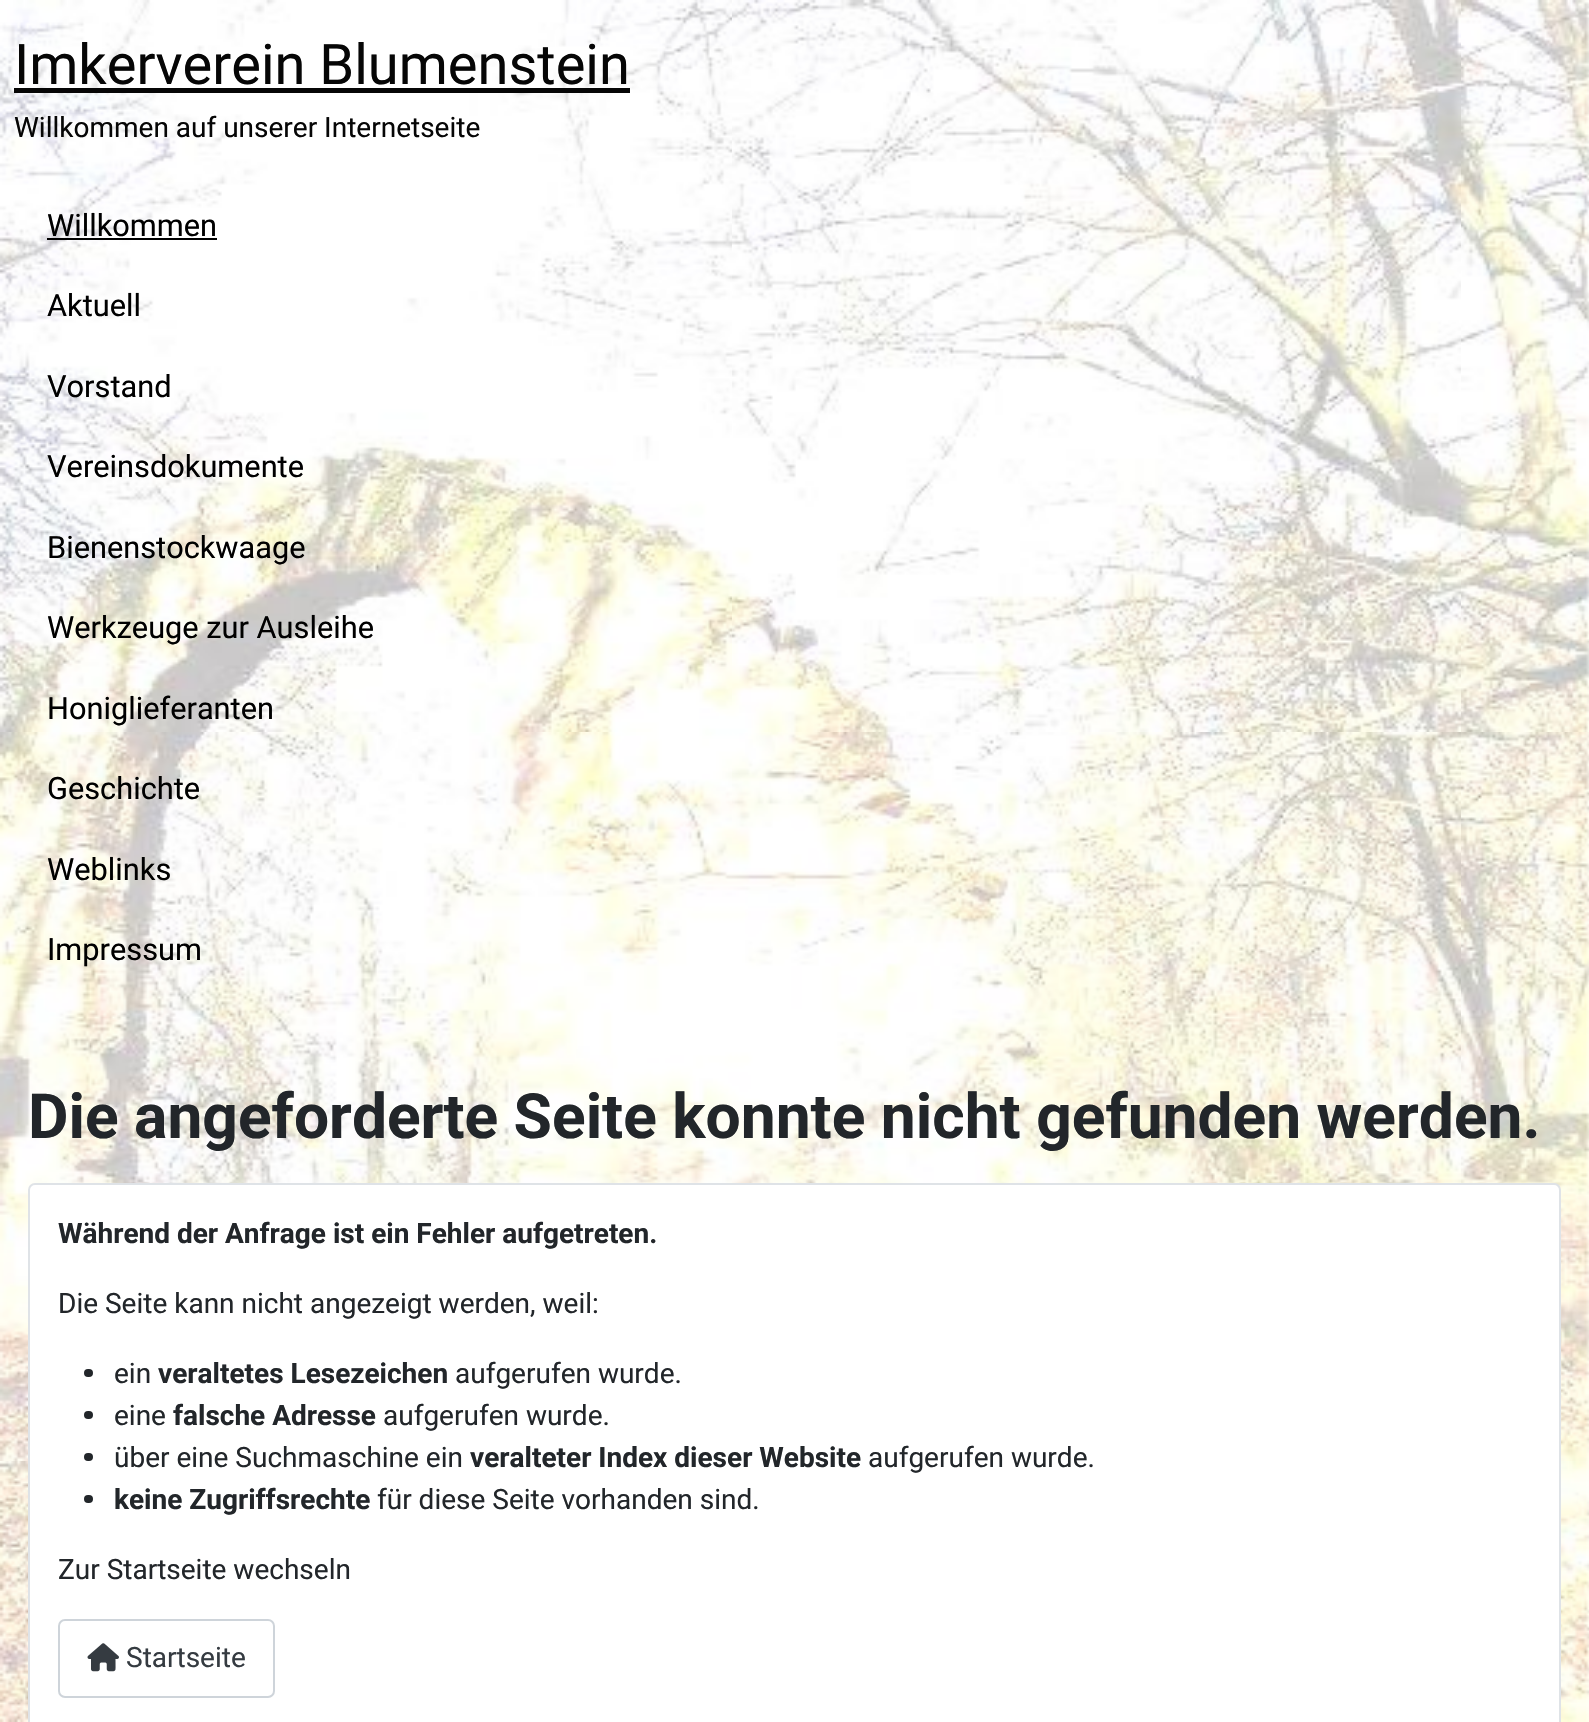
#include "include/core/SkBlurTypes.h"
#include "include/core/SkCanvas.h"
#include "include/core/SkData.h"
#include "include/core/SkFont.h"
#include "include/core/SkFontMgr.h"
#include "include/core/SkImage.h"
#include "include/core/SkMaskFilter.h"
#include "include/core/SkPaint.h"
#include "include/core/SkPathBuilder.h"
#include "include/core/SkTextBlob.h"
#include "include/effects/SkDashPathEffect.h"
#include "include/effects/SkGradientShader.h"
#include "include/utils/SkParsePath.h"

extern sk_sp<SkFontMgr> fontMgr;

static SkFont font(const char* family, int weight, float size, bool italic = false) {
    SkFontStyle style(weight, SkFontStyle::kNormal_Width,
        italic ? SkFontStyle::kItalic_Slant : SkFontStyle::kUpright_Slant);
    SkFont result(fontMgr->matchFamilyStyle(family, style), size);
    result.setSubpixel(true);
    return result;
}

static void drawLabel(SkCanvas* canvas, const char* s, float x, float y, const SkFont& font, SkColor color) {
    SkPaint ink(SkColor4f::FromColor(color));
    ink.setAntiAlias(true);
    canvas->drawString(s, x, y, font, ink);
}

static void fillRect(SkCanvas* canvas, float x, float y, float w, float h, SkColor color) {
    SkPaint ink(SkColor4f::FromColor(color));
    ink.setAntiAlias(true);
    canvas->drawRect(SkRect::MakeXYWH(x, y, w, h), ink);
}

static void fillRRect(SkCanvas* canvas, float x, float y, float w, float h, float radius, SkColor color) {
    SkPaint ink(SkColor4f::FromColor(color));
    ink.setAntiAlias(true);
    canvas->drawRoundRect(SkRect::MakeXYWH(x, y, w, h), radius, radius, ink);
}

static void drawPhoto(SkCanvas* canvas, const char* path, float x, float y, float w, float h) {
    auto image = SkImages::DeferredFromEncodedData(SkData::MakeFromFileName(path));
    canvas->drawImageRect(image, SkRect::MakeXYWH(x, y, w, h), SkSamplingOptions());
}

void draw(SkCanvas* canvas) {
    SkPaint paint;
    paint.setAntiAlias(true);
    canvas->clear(0xFFFFFFFF);
    drawPhoto(canvas, "assets/img1.png", 0, 0, 1589, 1722);
    SkFont font1 = font("Roboto", 400, 56);
    drawLabel(canvas, "Imkerverein Blumenstein", 14, 84, font1, 0xFF060606);
    fillRect(canvas, 14, 88, 616, 5, 0xFF060606);
    SkFont font2 = font("Roboto", 400, 28);
    drawLabel(canvas, "Willkommen auf unserer Internetseite", 14, 137, font2, 0xFF060606);
    SkFont font3 = font("Roboto", 400, 30.75f);
    drawLabel(canvas, "Willkommen", 47, 236, font3, 0xFF000000);
    fillRect(canvas, 47, 238, 170, 2, 0xFF000000);
    drawLabel(canvas, "Aktuell", 47, 316, font3, 0xFF000000);
    drawLabel(canvas, "Vorstand", 47, 397, font3, 0xFF000000);
    drawLabel(canvas, "Vereinsdokumente", 47, 477, font3, 0xFF000000);
    drawLabel(canvas, "Bienenstockwaage", 47, 558, font3, 0xFF000000);
    drawLabel(canvas, "Werkzeuge zur Ausleihe", 47, 638, font3, 0xFF000000);
    drawLabel(canvas, "Honiglieferanten", 47, 719, font3, 0xFF000000);
    drawLabel(canvas, "Geschichte", 47, 799, font3, 0xFF000000);
    drawLabel(canvas, "Weblinks", 47, 880, font3, 0xFF000000);
    drawLabel(canvas, "Impressum", 47, 960, font3, 0xFF000000);
    SkFont font4 = font("Roboto", 700, 62.3f);
    drawLabel(canvas, "Die angeforderte Seite konnte nicht gefunden werden.", 28, 1138, font4, 0xFF22262A);
    paint.setColor(0xFFFFFFFF);
    canvas->drawRoundRect(SkRect::MakeXYWH(29, 1184, 1531, 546), 6, 6, paint);
    paint.setStroke(true);
    paint.setStrokeWidth(2);
    paint.setColor(0xFFDFE3E7);
    canvas->drawRoundRect(SkRect::MakeXYWH(29, 1184, 1531, 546), 6, 6, paint);
    SkFont font5 = font("Roboto", 700, 28);
    drawLabel(canvas, "Während der Anfrage ist ein Fehler aufgetreten.", 58, 1243, font5, 0xFF22262A);
    drawLabel(canvas, "Die Seite kann nicht angezeigt werden, weil:", 58, 1313, font2, 0xFF22262A);
    fillRRect(canvas, 84, 1369, 9, 8, 4, 0xFF22262A);
    drawLabel(canvas, "ein", 114, 1383, font2, 0xFF22262A);
    drawLabel(canvas, "veraltetes Lesezeichen", 158, 1383, font5, 0xFF22262A);
    drawLabel(canvas, "aufgerufen wurde.", 455, 1383, font2, 0xFF22262A);
    fillRRect(canvas, 84, 1411, 9, 8, 4, 0xFF22262A);
    drawLabel(canvas, "eine", 114, 1425, font2, 0xFF22262A);
    drawLabel(canvas, "falsche Adresse", 173, 1425, font5, 0xFF22262A);
    drawLabel(canvas, "aufgerufen wurde.", 383, 1425, font2, 0xFF22262A);
    fillRRect(canvas, 84, 1453, 9, 8, 4, 0xFF22262A);
    drawLabel(canvas, "über eine Suchmaschine ein", 114, 1467, font2, 0xFF22262A);
    drawLabel(canvas, "veralteter Index dieser Website", 470, 1467, font5, 0xFF22262A);
    drawLabel(canvas, "aufgerufen wurde.", 868, 1467, font2, 0xFF22262A);
    fillRRect(canvas, 84, 1495, 9, 8, 4, 0xFF22262A);
    drawLabel(canvas, "keine Zugriffsrechte", 114, 1509, font5, 0xFF22262A);
    drawLabel(canvas, "für diese Seite vorhanden sind.", 377, 1509, font2, 0xFF22262A);
    drawLabel(canvas, "Zur Startseite wechseln", 58, 1579, font2, 0xFF22262A);
    paint.setColor(0xFFCED4DA);
    canvas->drawRoundRect(SkRect::MakeXYWH(59, 1620, 215, 77), 6, 6, paint);
    drawPhoto(canvas, "assets/img2.png", 87, 1643, 32, 29);
    drawLabel(canvas, "Startseite", 126, 1667, font2, 0xFF353B41);
}
